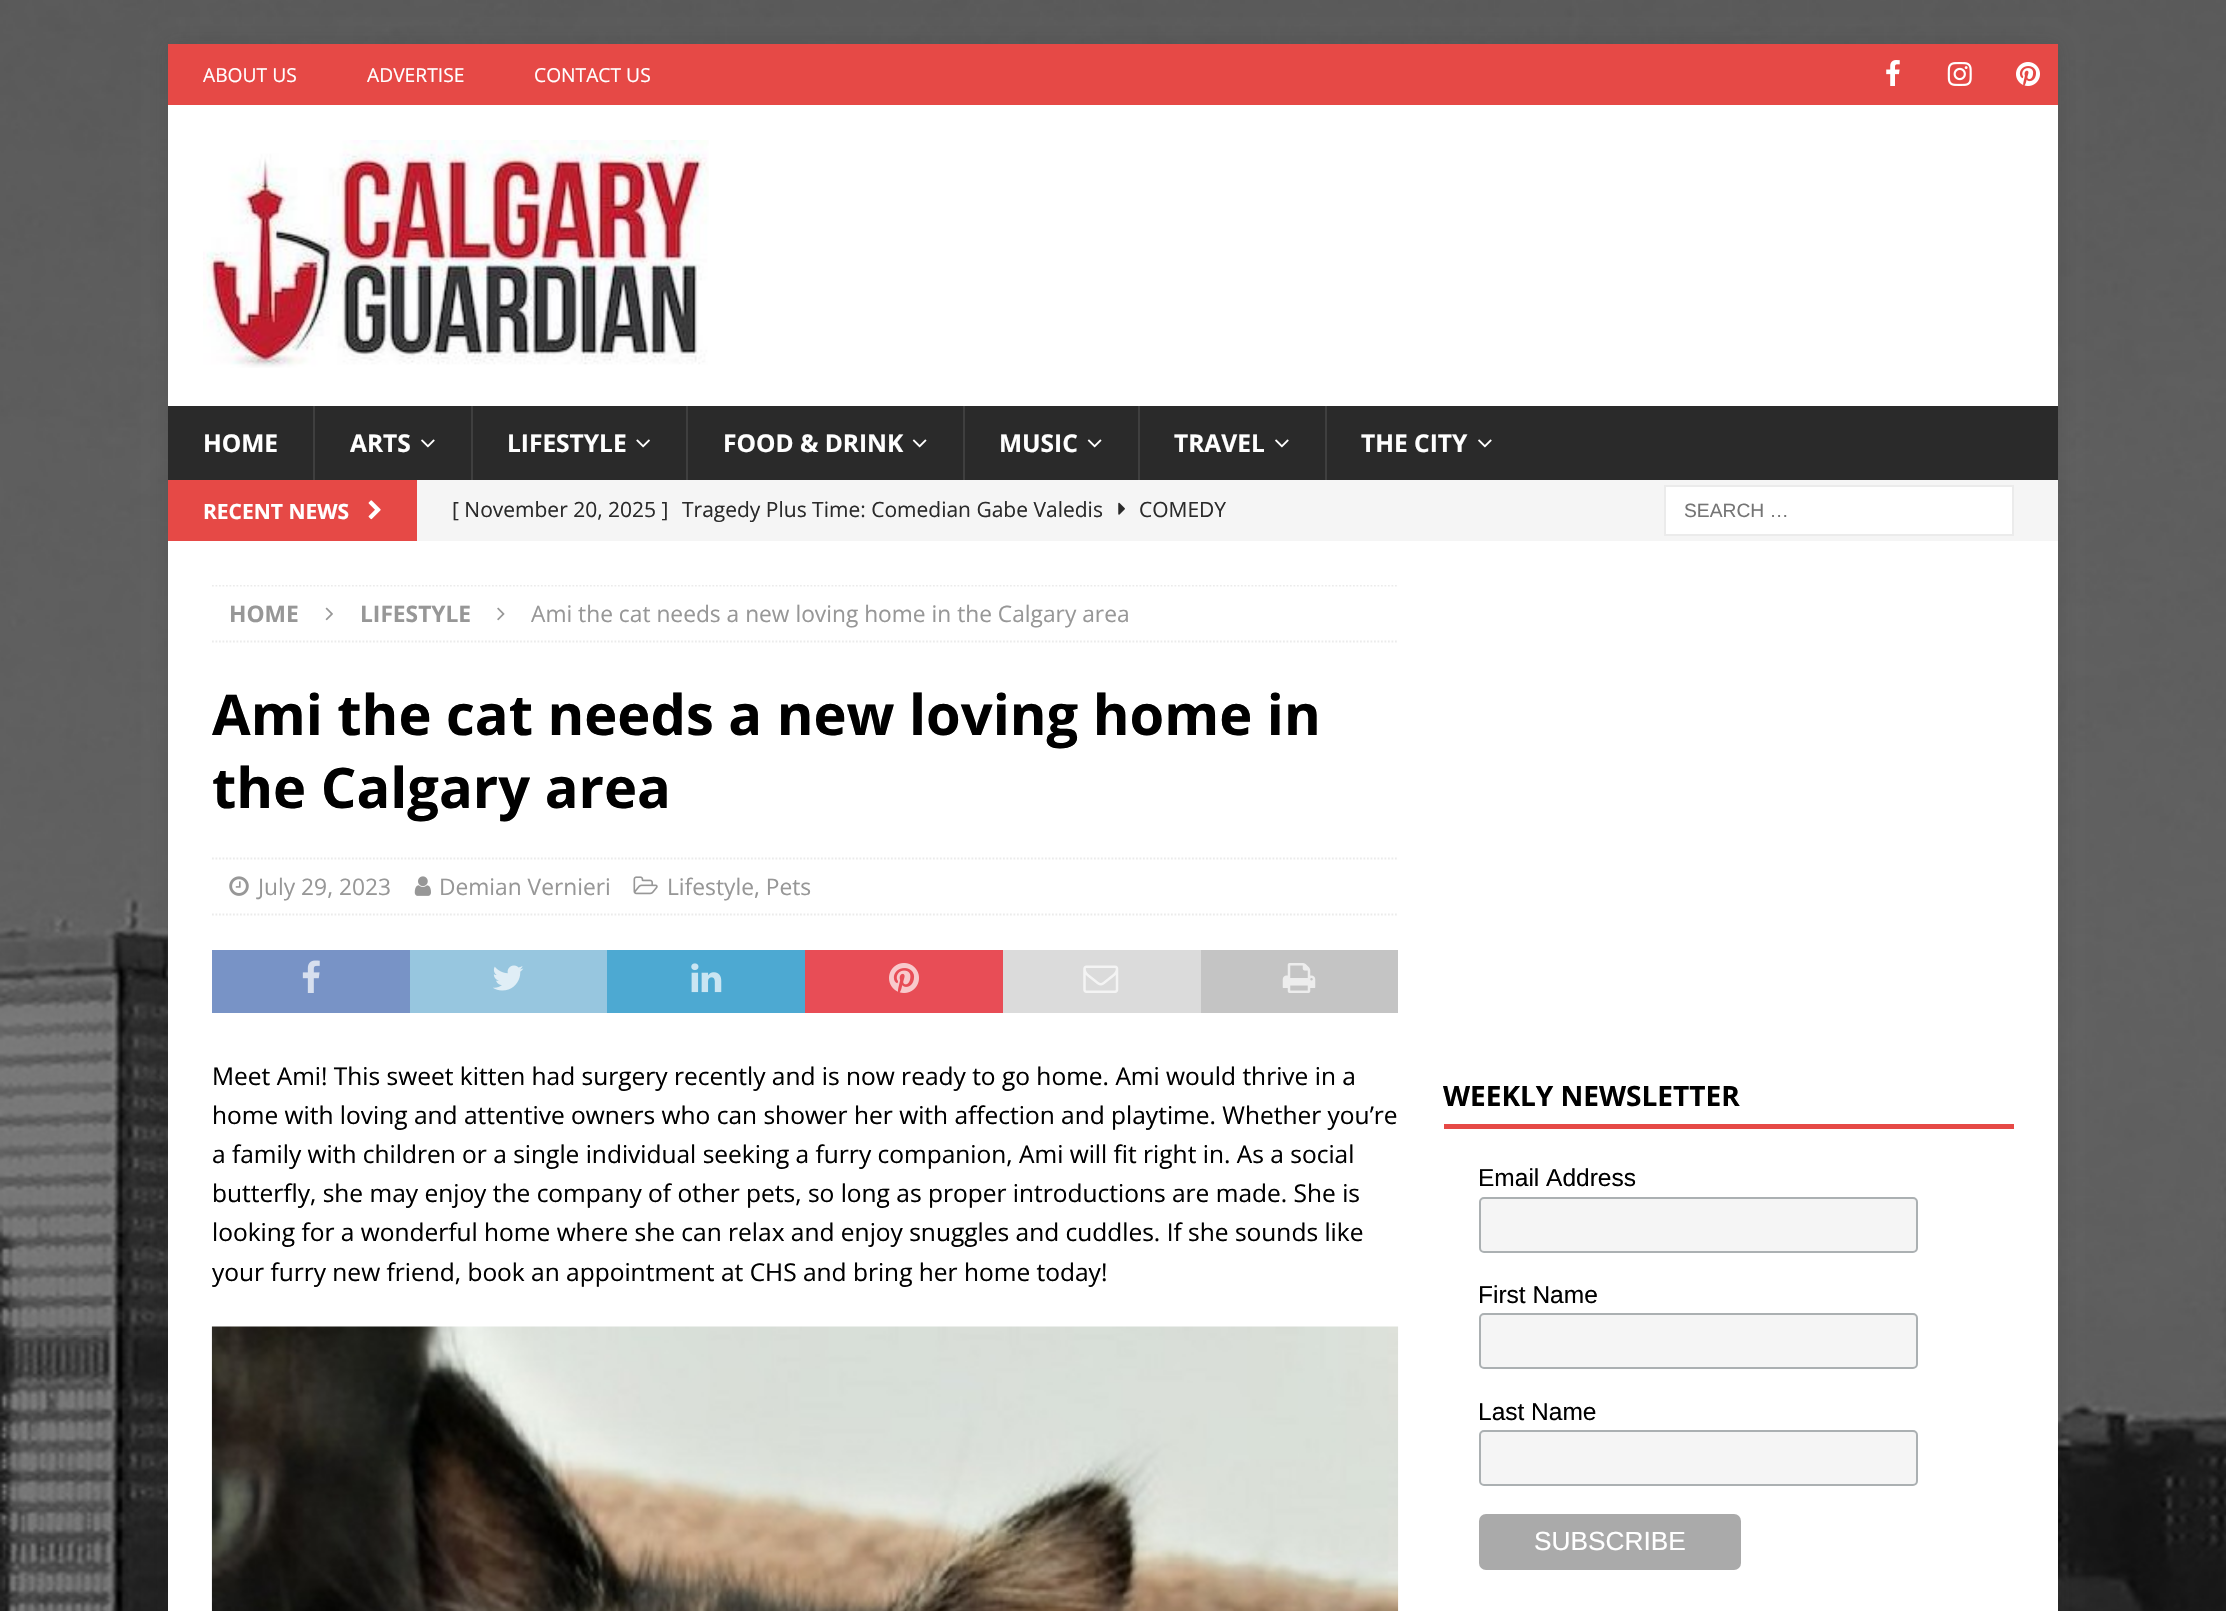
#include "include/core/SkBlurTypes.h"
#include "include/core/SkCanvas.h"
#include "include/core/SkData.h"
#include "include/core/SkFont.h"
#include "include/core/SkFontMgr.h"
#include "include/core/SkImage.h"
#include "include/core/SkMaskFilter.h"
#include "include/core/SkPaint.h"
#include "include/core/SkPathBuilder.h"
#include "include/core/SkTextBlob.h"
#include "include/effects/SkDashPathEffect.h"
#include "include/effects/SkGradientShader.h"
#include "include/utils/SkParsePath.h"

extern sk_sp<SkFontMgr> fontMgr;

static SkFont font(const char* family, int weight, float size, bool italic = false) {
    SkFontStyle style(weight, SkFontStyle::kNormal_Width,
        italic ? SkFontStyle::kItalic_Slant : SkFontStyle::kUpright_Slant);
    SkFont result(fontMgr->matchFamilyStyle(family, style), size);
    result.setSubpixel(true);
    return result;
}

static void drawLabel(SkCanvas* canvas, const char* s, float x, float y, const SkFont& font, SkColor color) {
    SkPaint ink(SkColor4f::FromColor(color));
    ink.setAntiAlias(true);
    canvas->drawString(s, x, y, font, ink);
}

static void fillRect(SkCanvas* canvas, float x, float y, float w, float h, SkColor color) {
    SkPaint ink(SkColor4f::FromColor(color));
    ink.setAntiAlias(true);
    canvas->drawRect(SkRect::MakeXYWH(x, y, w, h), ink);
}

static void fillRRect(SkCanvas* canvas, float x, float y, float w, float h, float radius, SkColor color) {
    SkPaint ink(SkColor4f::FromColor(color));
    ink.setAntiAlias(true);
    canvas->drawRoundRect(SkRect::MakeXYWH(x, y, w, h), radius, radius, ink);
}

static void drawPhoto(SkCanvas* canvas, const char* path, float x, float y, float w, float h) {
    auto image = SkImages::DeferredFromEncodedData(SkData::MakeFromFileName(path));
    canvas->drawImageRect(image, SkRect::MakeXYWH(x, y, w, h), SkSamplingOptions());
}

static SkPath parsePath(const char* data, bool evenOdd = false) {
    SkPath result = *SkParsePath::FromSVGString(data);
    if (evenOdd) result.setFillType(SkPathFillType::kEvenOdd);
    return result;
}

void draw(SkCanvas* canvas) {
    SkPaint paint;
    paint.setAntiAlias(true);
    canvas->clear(0xFFFFFFFF);
    drawPhoto(canvas, "assets/img1.png", 0, 0, 2226, 1611);
    paint.setColor(0x2B323232);
    paint.setMaskFilter(SkMaskFilter::MakeBlur(kNormal_SkBlurStyle, 9));
    canvas->drawRect(SkRect::MakeXYWH(168, 44, 1890, 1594), paint);
    paint.setMaskFilter(nullptr);
    fillRect(canvas, 168, 44, 1890, 61, 0xFFE64946);
    SkFont font1 = font("Open Sans", 400, 19.25f);
    drawLabel(canvas, "ABOUT US", 203, 82, font1, 0xFFFFFFFF);
    drawLabel(canvas, "ADVERTISE", 367, 82, font1, 0xFFFFFFFF);
    drawLabel(canvas, "CONTACT US", 534, 82, font1, 0xFFFFFFFF);
    drawPhoto(canvas, "assets/img2.png", 1886, 60, 14, 26);
    drawPhoto(canvas, "assets/img3.png", 1947, 62, 25, 24);
    drawPhoto(canvas, "assets/img4.png", 2016, 62, 24, 24);
    fillRect(canvas, 168, 105, 1890, 301, 0xFFFFFFFF);
    drawPhoto(canvas, "assets/img5.png", 203, 140, 506, 228);
    fillRect(canvas, 168, 406, 1890, 74, 0xFF2A2A2A);
    SkFont font2 = font("Open Sans", 700, 24.5f);
    drawLabel(canvas, "HOME", 203, 452, font2, 0xFFFFFFFF);
    fillRect(canvas, 313, 406, 2, 74, 0xFF3F3F3F);
    drawLabel(canvas, "ARTS", 350, 452, font2, 0xFFFFFFFF);
    drawPhoto(canvas, "assets/img6.png", 421, 439, 14, 9);
    fillRect(canvas, 471, 406, 2, 74, 0xFF3F3F3F);
    drawLabel(canvas, "LIFESTYLE", 507, 452, font2, 0xFFFFFFFF);
    drawPhoto(canvas, "assets/img7.png", 636, 439, 14, 9);
    fillRect(canvas, 686, 406, 2, 74, 0xFF3F3F3F);
    drawLabel(canvas, "FOOD & DRINK", 723, 452, font2, 0xFFFFFFFF);
    drawPhoto(canvas, "assets/img8.png", 912, 439, 15, 9);
    fillRect(canvas, 963, 406, 2, 74, 0xFF3F3F3F);
    drawLabel(canvas, "MUSIC", 999, 452, font2, 0xFFFFFFFF);
    drawPhoto(canvas, "assets/img8.png", 1087, 439, 15, 9);
    fillRect(canvas, 1138, 406, 2, 74, 0xFF3F3F3F);
    drawLabel(canvas, "TRAVEL", 1174, 452, font2, 0xFFFFFFFF);
    drawPhoto(canvas, "assets/img6.png", 1275, 439, 14, 9);
    fillRect(canvas, 1325, 406, 2, 74, 0xFF3F3F3F);
    drawLabel(canvas, "THE CITY", 1361, 452, font2, 0xFFFFFFFF);
    drawPhoto(canvas, "assets/img6.png", 1478, 439, 14, 9);
    fillRect(canvas, 417, 480, 1641, 61, 0xFFF5F5F5);
    fillRect(canvas, 168, 480, 249, 61, 0xFFE64946);
    SkFont font3 = font("Open Sans", 700, 21);
    drawLabel(canvas, "RECENT NEWS", 203, 519, font3, 0xFFFFFFFF);
    drawPhoto(canvas, "assets/img9.png", 368, 500, 13, 20);
    SkFont font4 = font("Open Sans", 400, 21);
    drawLabel(canvas, "[ November 20, 2025 ]", 452, 517, font4, 0xFF2A2A2A);
    drawLabel(canvas, "Tragedy Plus Time: Comedian Gabe Valedis", 682, 517, font4, 0xFF2A2A2A);
    drawPhoto(canvas, "assets/img10.png", 1118, 502, 7, 13);
    drawLabel(canvas, "COMEDY", 1139, 517, font4, 0xFF2A2A2A);
    paint.setColor(0xFFFFFFFF);
    canvas->drawRect(SkRect::MakeXYWH(1665, 486, 348, 49), paint);
    paint.setStroke(true);
    paint.setStrokeWidth(2);
    paint.setColor(0xFFEBEBEB);
    canvas->drawRect(SkRect::MakeXYWH(1665, 486, 348, 49), paint);
    SkFont font5 = font("Liberation Sans", 400, 19.25f);
    drawLabel(canvas, "SEARCH …", 1684, 517, font5, 0xFF757575);
    fillRect(canvas, 168, 541, 1890, 1070, 0xFFFFFFFF);
    canvas->save();
    canvas->clipRect(SkRect::MakeXYWH(212, 585, 1186, 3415));
    paint.setStrokeWidth(1.8f);
    paint.setPathEffect(SkDashPathEffect::Make({{1.75f, 1.75f}}, 0));
    canvas->drawPath(parsePath("M212 585.5H1398"), paint);
    paint.setPathEffect(nullptr);
    canvas->restore();
    paint.setPathEffect(SkDashPathEffect::Make({{1.75f, 1.75f}}, 0));
    canvas->drawPath(parsePath("M212 641.5H1398"), paint);
    paint.setPathEffect(nullptr);
    SkFont font6 = font("Open Sans", 700, 22.75f);
    drawLabel(canvas, "HOME", 229, 622, font6, 0xFF979797);
    drawPhoto(canvas, "assets/img11.png", 325, 607, 8, 14);
    drawLabel(canvas, "LIFESTYLE", 360, 622, font6, 0xFF979797);
    drawPhoto(canvas, "assets/img12.png", 497, 607, 8, 14);
    SkFont font7 = font("Open Sans", 400, 22.75f);
    drawLabel(canvas, "Ami the cat needs a new loving home in the Calgary area", 531, 622, font7, 0xFF979797);
    SkFont font8 = font("Open Sans", 700, 56);
    drawLabel(canvas, "Ami the cat needs a new loving home in", 212, 735, font8, 0xFF000000);
    drawLabel(canvas, "the Calgary area", 212, 808, font8, 0xFF000000);
    paint.setPathEffect(SkDashPathEffect::Make({{1.75f, 1.75f}}, 0));
    canvas->drawPath(parsePath("M212 858.5H1398"), paint);
    paint.setPathEffect(nullptr);
    paint.setPathEffect(SkDashPathEffect::Make({{1.75f, 1.75f}}, 0));
    canvas->drawPath(parsePath("M212 914.5H1398"), paint);
    paint.setPathEffect(nullptr);
    drawPhoto(canvas, "assets/img13.png", 229, 876, 20, 20);
    drawLabel(canvas, "July 29, 2023", 258, 895, font7, 0xFF979797);
    drawPhoto(canvas, "assets/img14.png", 414, 876, 17, 20);
    drawLabel(canvas, "Demian Vernieri", 439, 895, font7, 0xFF979797);
    drawPhoto(canvas, "assets/img15.png", 633, 876, 25, 19);
    drawLabel(canvas, "Lifestyle, Pets", 667, 895, font7, 0xFF979797);
    fillRect(canvas, 212, 950, 198, 63, 0xFF7893C6);
    drawPhoto(canvas, "assets/img16.png", 302, 960, 18, 33);
    fillRect(canvas, 410, 950, 197, 63, 0xFF97C6DF);
    drawPhoto(canvas, "assets/img17.png", 493, 965, 31, 26);
    fillRect(canvas, 607, 950, 198, 63, 0xFF4DA9D2);
    drawPhoto(canvas, "assets/img18.png", 691, 963, 31, 30);
    fillRect(canvas, 805, 950, 198, 63, 0xFFE84D56);
    drawPhoto(canvas, "assets/img19.png", 889, 963, 30, 30);
    fillRect(canvas, 1003, 950, 198, 63, 0xFFDBDBDB);
    drawPhoto(canvas, "assets/img20.png", 1083, 965, 36, 28);
    fillRect(canvas, 1201, 950, 197, 63, 0xFFC4C4C4);
    drawPhoto(canvas, "assets/img21.png", 1282, 963, 34, 30);
    SkFont font9 = font("Open Sans", 400, 24.5f);
    drawLabel(canvas, "Meet Ami! This sweet kitten had surgery recently and is now ready to go home. Ami would thrive in a", 212, 1085, font9, 0xFF000000);
    drawLabel(canvas, "home with loving and attentive owners who can shower her with affection and playtime. Whether you’re", 212, 1124, font9, 0xFF000000);
    drawLabel(canvas, "a family with children or a single individual seeking a furry companion, Ami will fit right in. As a social", 212, 1163, font9, 0xFF000000);
    drawLabel(canvas, "butterfly, she may enjoy the company of other pets, so long as proper introductions are made. She is", 212, 1202, font9, 0xFF000000);
    drawLabel(canvas, "looking for a wonderful home where she can relax and enjoy snuggles and cuddles. If she sounds like", 212, 1241, font9, 0xFF000000);
    drawLabel(canvas, "your furry new friend, book an appointment at CHS and bring her home today!", 212, 1281, font9, 0xFF000000);
    drawPhoto(canvas, "assets/img22.png", 211, 1326, 1188, 285);
    fillRect(canvas, 1444, 1124, 570, 5, 0xFFE64946);
    SkFont font10 = font("Open Sans", 700, 28);
    drawLabel(canvas, "WEEKLY NEWSLETTER", 1443, 1106, font10, 0xFF000000);
    SkFont font11 = font("Liberation Sans", 400, 24.5f);
    drawLabel(canvas, "Email Address", 1478, 1186, font11, 0xFF000000);
    paint.setStroke(false);
    paint.setColor(0xFFF5F5F5);
    canvas->drawRoundRect(SkRect::MakeXYWH(1480, 1198, 437, 54), 4, 4, paint);
    paint.setStroke(true);
    paint.setStrokeWidth(2);
    paint.setColor(0xFFABB0B2);
    canvas->drawRoundRect(SkRect::MakeXYWH(1480, 1198, 437, 54), 4, 4, paint);
    drawLabel(canvas, "First Name", 1478, 1303, font11, 0xFF000000);
    paint.setStroke(false);
    paint.setColor(0xFFF5F5F5);
    canvas->drawRoundRect(SkRect::MakeXYWH(1480, 1314, 437, 54), 4, 4, paint);
    paint.setStroke(true);
    paint.setColor(0xFFABB0B2);
    canvas->drawRoundRect(SkRect::MakeXYWH(1480, 1314, 437, 54), 4, 4, paint);
    drawLabel(canvas, "Last Name", 1478, 1420, font11, 0xFF000000);
    paint.setStroke(false);
    paint.setColor(0xFFF5F5F5);
    canvas->drawRoundRect(SkRect::MakeXYWH(1480, 1431, 437, 54), 4, 4, paint);
    paint.setStroke(true);
    paint.setColor(0xFFABB0B2);
    canvas->drawRoundRect(SkRect::MakeXYWH(1480, 1431, 437, 54), 4, 4, paint);
    fillRRect(canvas, 1479, 1514, 262, 56, 7, 0xFFAAAAAA);
    SkFont font12 = font("Liberation Sans", 400, 26.25f);
    drawLabel(canvas, "SUBSCRIBE", 1534, 1550, font12, 0xFFFFFFFF);
}
